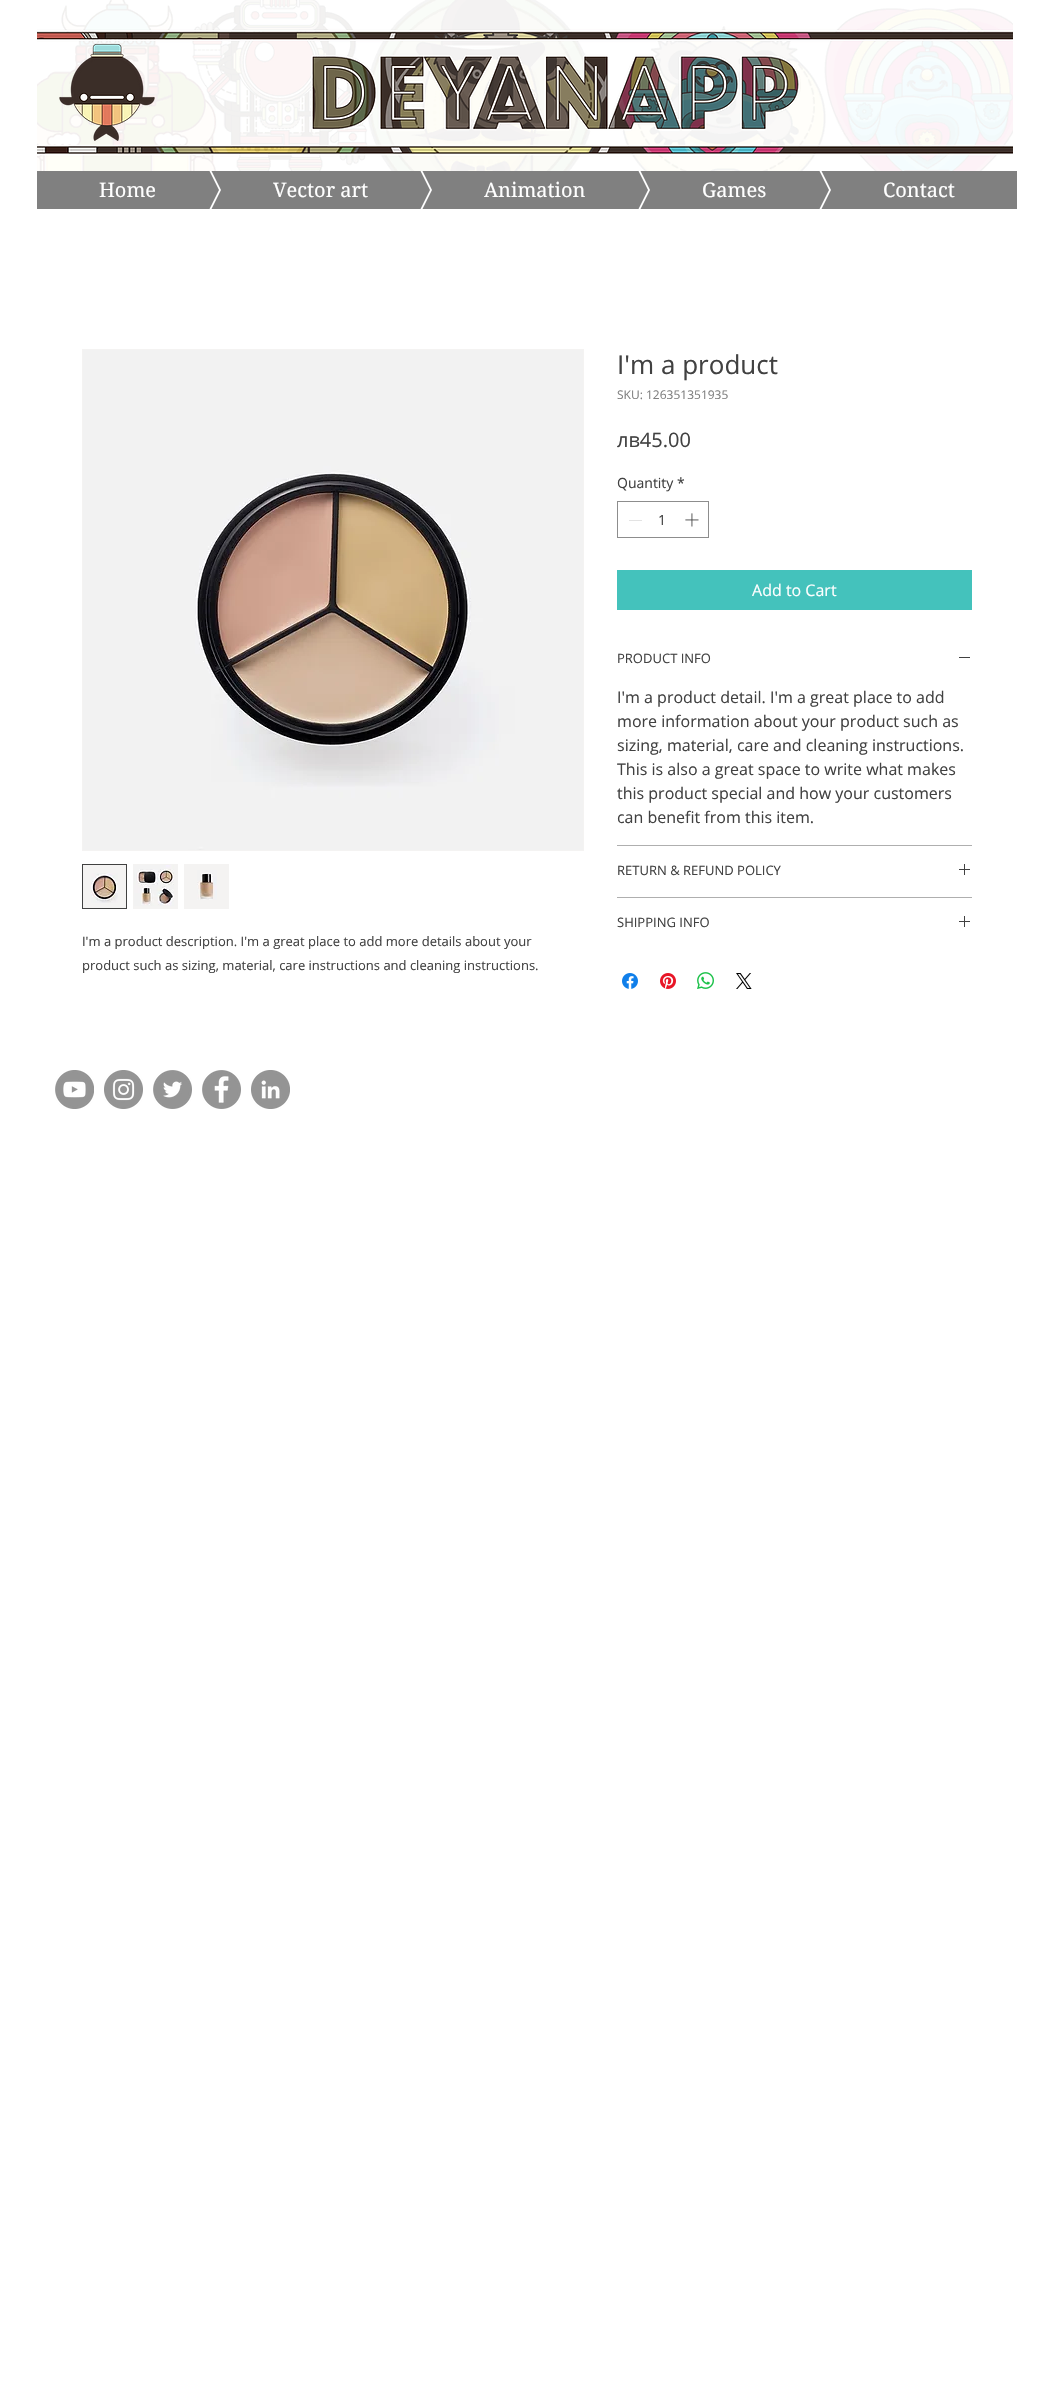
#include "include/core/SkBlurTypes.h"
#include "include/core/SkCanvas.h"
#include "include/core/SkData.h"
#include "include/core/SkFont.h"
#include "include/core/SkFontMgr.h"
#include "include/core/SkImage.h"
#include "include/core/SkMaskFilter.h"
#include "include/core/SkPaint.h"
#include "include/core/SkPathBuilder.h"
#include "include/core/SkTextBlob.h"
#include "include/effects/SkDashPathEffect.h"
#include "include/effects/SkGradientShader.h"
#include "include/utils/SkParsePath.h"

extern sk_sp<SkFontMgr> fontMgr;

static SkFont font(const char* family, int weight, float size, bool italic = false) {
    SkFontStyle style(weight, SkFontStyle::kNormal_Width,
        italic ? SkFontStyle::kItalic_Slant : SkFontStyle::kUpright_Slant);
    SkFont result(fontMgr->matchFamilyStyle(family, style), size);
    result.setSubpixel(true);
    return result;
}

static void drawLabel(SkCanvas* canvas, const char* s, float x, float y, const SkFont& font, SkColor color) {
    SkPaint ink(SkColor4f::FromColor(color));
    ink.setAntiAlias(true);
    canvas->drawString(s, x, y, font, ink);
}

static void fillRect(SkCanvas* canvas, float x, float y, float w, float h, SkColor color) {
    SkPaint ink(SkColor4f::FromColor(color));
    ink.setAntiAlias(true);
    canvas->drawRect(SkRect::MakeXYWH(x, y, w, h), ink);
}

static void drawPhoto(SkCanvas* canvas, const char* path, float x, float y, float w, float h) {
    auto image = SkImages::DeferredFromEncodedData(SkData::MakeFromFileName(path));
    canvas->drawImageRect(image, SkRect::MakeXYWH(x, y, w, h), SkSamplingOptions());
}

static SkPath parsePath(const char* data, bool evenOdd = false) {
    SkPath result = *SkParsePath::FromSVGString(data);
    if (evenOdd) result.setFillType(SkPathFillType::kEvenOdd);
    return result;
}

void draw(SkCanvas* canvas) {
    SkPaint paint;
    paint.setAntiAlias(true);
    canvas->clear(0xFFFFFFFF);
    drawPhoto(canvas, "assets/img1.png", 37, 0, 976, 171);
    drawPhoto(canvas, "assets/img2.png", 59, 43, 96, 98);
    fillRect(canvas, 37, 171, 112, 38, 0xFF808080);
    canvas->save();
    canvas->clipRect(SkRect::MakeXYWH(149, 171, 70, 38));
    paint.setColor(0xFF808080);
    canvas->drawPath(parsePath("M219 190H149V50Z"), paint);
    canvas->drawPath(parsePath("M149 190H219L149 330Z"), paint);
    canvas->restore();
    SkFont font1 = font("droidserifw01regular", 400, 20);
    drawLabel(canvas, "Home", 99, 197, font1, 0xFFFFFFFF);
    canvas->save();
    canvas->clipRect(SkRect::MakeXYWH(151, 171, 70, 38));
    canvas->drawPath(parsePath("M151 50H221V190ZM221 330H151L221 190Z"), paint);
    canvas->restore();
    fillRect(canvas, 221, 171, 139, 38, 0xFF808080);
    canvas->save();
    canvas->clipRect(SkRect::MakeXYWH(360, 171, 70, 38));
    canvas->drawPath(parsePath("M430 190H360V50Z"), paint);
    canvas->drawPath(parsePath("M360 190H430L360 330Z"), paint);
    canvas->restore();
    drawLabel(canvas, "Vector art", 273, 197, font1, 0xFFFFFFFF);
    canvas->save();
    canvas->clipRect(SkRect::MakeXYWH(362, 171, 70, 38));
    canvas->drawPath(parsePath("M362 50H432V190ZM432 330H362L432 190Z"), paint);
    canvas->restore();
    fillRect(canvas, 432, 171, 146, 38, 0xFF808080);
    canvas->save();
    canvas->clipRect(SkRect::MakeXYWH(578, 171, 70, 38));
    canvas->drawPath(parsePath("M648 190H578V50Z"), paint);
    canvas->drawPath(parsePath("M578 190H648L578 330Z"), paint);
    canvas->restore();
    drawLabel(canvas, "Animation", 484, 197, font1, 0xFFFFFFFF);
    canvas->save();
    canvas->clipRect(SkRect::MakeXYWH(580, 171, 70, 38));
    canvas->drawPath(parsePath("M580 50H650V190ZM650 330H580L650 190Z"), paint);
    canvas->restore();
    fillRect(canvas, 650, 171, 109, 38, 0xFF808080);
    canvas->save();
    canvas->clipRect(SkRect::MakeXYWH(759, 171, 70, 38));
    canvas->drawPath(parsePath("M829 190H759V50Z"), paint);
    canvas->drawPath(parsePath("M759 190H829L759 330Z"), paint);
    canvas->restore();
    drawLabel(canvas, "Games", 702, 197, font1, 0xFFFFFFFF);
    canvas->save();
    canvas->clipRect(SkRect::MakeXYWH(761, 171, 70, 38));
    canvas->drawPath(parsePath("M761 50H831V190ZM831 330H761L831 190Z"), paint);
    canvas->restore();
    fillRect(canvas, 831, 171, 186, 38, 0xFF808080);
    drawLabel(canvas, "Contact", 883, 197, font1, 0xFFFFFFFF);
    SkFont font2 = font("Open Sans", 400, 26);
    drawLabel(canvas, "I'm a product", 617, 374, font2, 0xFF414141);
    SkFont font3 = font("Open Sans", 400, 12);
    drawLabel(canvas, "SKU: 126351351935", 617, 399, font3, 0xFF808080);
    SkFont font4 = font("Open Sans", 400, 20);
    drawLabel(canvas, "лв45.00", 617, 447, font4, 0xFF414141);
    SkFont font5 = font("Open Sans", 400, 14);
    drawLabel(canvas, "Quantity", 617, 488, font5, 0xFF414141);
    drawLabel(canvas, "*", 677, 488, font5, 0xFF414141);
    paint.setStroke(true);
    paint.setStrokeWidth(1);
    paint.setColor(0xFF8D8D8D);
    canvas->drawRect(SkRect::MakeXYWH(617.5f, 501.5f, 91, 36), paint);
    fillRect(canvas, 629, 520, 13, 1, 0xFFE3E3E3);
    drawLabel(canvas, "1", 658, 525, font5, 0xFF414141);
    drawPhoto(canvas, "assets/img3.png", 685, 513, 14, 14);
    fillRect(canvas, 617, 570, 355, 40, 0xFF44C2BC);
    SkFont font6 = font("Open Sans", 400, 16);
    drawLabel(canvas, "Add to Cart", 752, 596, font6, 0xFFFFFFFF);
    fillRect(canvas, 617, 845, 355, 1, 0xFFAFAFAF);
    SkFont font7 = font("Open Sans", 400, 13);
    drawLabel(canvas, "PRODUCT INFO", 617, 663, font7, 0xFF414141);
    fillRect(canvas, 959, 657, 11, 1, 0xFF414141);
    drawLabel(canvas, "I'm a product detail. I'm a great place to add", 617, 703, font6, 0xFF414141);
    drawLabel(canvas, "more information about your product such as", 617, 727, font6, 0xFF414141);
    drawLabel(canvas, "sizing, material, care and cleaning instructions.", 617, 751, font6, 0xFF414141);
    drawLabel(canvas, "This is also a great space to write what makes", 617, 775, font6, 0xFF414141);
    drawLabel(canvas, "this product special and how your customers", 617, 799, font6, 0xFF414141);
    drawLabel(canvas, "can benefit from this item.", 617, 823, font6, 0xFF414141);
    fillRect(canvas, 617, 897, 355, 1, 0xFFAFAFAF);
    drawLabel(canvas, "RETURN & REFUND POLICY", 617, 875, font7, 0xFF414141);
    drawPhoto(canvas, "assets/img4.png", 959, 864, 11, 11);
    drawLabel(canvas, "SHIPPING INFO", 617, 927, font7, 0xFF414141);
    drawPhoto(canvas, "assets/img4.png", 959, 916, 11, 11);
    drawPhoto(canvas, "assets/img5.png", 622, 973, 16, 16);
    drawPhoto(canvas, "assets/img6.png", 660, 973, 16, 16);
    drawPhoto(canvas, "assets/img7.png", 697, 972, 17, 17);
    drawPhoto(canvas, "assets/img8.png", 736, 973, 16, 16);
    paint.setColor(0xFFF4F3F2);
    canvas->drawRect(SkRect::MakeXYWH(82.5f, 349.5f, 501, 501), paint);
    drawPhoto(canvas, "assets/img9.png", 83, 350, 500, 500);
    paint.setStroke(false);
    canvas->drawRect(SkRect::MakeXYWH(82.5f, 864.5f, 44, 44), paint);
    paint.setStroke(true);
    paint.setColor(0xFF414141);
    canvas->drawRect(SkRect::MakeXYWH(82.5f, 864.5f, 44, 44), paint);
    drawPhoto(canvas, "assets/img10.png", 91, 873, 27, 30);
    fillRect(canvas, 133, 864, 45, 45, 0xFFF4F3F2);
    drawPhoto(canvas, "assets/img11.png", 134, 865, 40, 41);
    fillRect(canvas, 184, 864, 45, 45, 0xFFF4F3F2);
    drawPhoto(canvas, "assets/img12.png", 197, 870, 20, 30);
    drawLabel(canvas, "I'm a product description. I'm a great place to add more details about your", 82, 946, font7, 0xFF414141);
    drawLabel(canvas, "product such as sizing, material, care instructions and cleaning instructions.", 82, 970, font7, 0xFF414141);
    drawPhoto(canvas, "assets/img13.png", 55, 1070, 39, 39);
    drawPhoto(canvas, "assets/img14.png", 104, 1070, 39, 39);
    drawPhoto(canvas, "assets/img15.png", 153, 1070, 39, 39);
    drawPhoto(canvas, "assets/img16.png", 202, 1070, 39, 39);
    drawPhoto(canvas, "assets/img17.png", 251, 1070, 39, 39);
}
